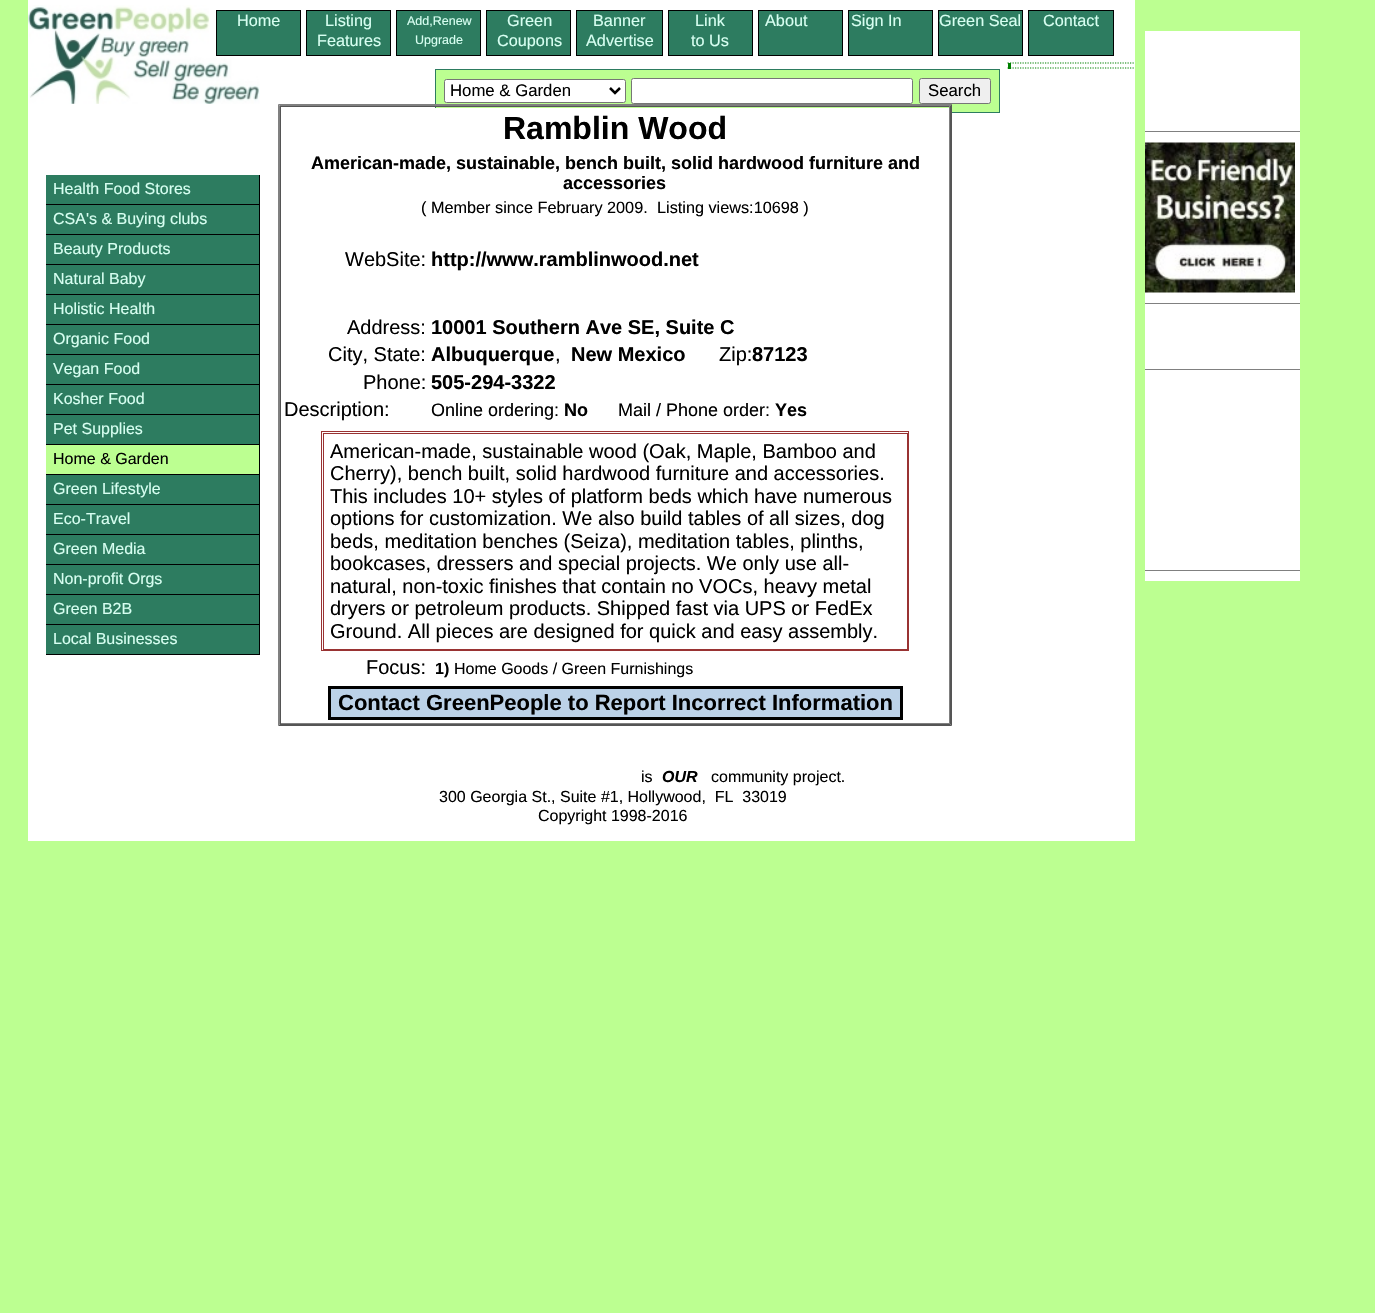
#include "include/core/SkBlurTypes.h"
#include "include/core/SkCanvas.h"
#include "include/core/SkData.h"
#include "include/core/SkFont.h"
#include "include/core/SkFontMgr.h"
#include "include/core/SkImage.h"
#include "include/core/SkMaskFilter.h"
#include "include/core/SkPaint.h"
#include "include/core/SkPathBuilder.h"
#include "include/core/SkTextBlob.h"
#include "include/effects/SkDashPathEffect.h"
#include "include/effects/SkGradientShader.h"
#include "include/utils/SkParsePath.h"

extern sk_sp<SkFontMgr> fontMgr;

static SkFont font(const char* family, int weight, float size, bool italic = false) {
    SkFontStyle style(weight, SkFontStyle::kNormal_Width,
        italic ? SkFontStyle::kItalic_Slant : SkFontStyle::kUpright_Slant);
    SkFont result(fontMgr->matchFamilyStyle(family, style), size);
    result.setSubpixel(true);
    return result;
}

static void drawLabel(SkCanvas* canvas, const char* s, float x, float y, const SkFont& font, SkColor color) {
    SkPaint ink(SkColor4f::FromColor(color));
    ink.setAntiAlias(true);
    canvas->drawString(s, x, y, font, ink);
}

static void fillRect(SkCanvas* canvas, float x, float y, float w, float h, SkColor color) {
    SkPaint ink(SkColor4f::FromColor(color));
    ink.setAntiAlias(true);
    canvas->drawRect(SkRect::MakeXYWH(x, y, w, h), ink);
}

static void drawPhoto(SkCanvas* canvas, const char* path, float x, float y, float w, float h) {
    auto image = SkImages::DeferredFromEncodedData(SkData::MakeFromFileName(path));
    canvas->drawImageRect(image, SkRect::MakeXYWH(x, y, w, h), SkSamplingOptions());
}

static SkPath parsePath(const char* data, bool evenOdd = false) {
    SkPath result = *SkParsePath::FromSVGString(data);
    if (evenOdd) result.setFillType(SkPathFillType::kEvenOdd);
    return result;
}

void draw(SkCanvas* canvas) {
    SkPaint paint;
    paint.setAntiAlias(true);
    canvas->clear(0xFFBCFF91);
    fillRect(canvas, 28, 0, 1107, 841, 0xFFFFFFFF);
    drawPhoto(canvas, "assets/img1.png", 28, 5, 232, 99);
    paint.setColor(0xFF2D7C60);
    canvas->drawRect(SkRect::MakeXYWH(216.5f, 10.5f, 84, 45), paint);
    paint.setStroke(true);
    paint.setStrokeWidth(1);
    paint.setColor(0xFF000000);
    canvas->drawRect(SkRect::MakeXYWH(216.5f, 10.5f, 84, 45), paint);
    SkFont font1 = font("Liberation Sans", 400, 16.25f);
    drawLabel(canvas, "Home", 237, 26, font1, 0xFFD7FFF1);
    paint.setStroke(false);
    paint.setColor(0xFF2D7C60);
    canvas->drawRect(SkRect::MakeXYWH(306.5f, 10.5f, 84, 45), paint);
    paint.setStroke(true);
    paint.setColor(0xFF000000);
    canvas->drawRect(SkRect::MakeXYWH(306.5f, 10.5f, 84, 45), paint);
    drawLabel(canvas, "Listing", 325, 26, font1, 0xFFD7FFF1);
    drawLabel(canvas, "Features", 317, 46, font1, 0xFFD7FFF1);
    paint.setStroke(false);
    paint.setColor(0xFF2D7C60);
    canvas->drawRect(SkRect::MakeXYWH(396.5f, 10.5f, 84, 45), paint);
    paint.setStroke(true);
    paint.setColor(0xFF000000);
    canvas->drawRect(SkRect::MakeXYWH(396.5f, 10.5f, 84, 45), paint);
    SkFont font2 = font("Liberation Sans", 400, 12.5f);
    drawLabel(canvas, "Add,Renew", 407, 25, font2, 0xFFD7FFF1);
    drawLabel(canvas, "Upgrade", 415, 44, font2, 0xFFD7FFF1);
    paint.setStroke(false);
    paint.setColor(0xFF2D7C60);
    canvas->drawRect(SkRect::MakeXYWH(486.5f, 10.5f, 84, 45), paint);
    paint.setStroke(true);
    paint.setColor(0xFF000000);
    canvas->drawRect(SkRect::MakeXYWH(486.5f, 10.5f, 84, 45), paint);
    drawLabel(canvas, "Green", 507, 26, font1, 0xFFD7FFF1);
    drawLabel(canvas, "Coupons", 497, 46, font1, 0xFFD7FFF1);
    paint.setStroke(false);
    paint.setColor(0xFF2D7C60);
    canvas->drawRect(SkRect::MakeXYWH(576.5f, 10.5f, 86, 45), paint);
    paint.setStroke(true);
    paint.setColor(0xFF000000);
    canvas->drawRect(SkRect::MakeXYWH(576.5f, 10.5f, 86, 45), paint);
    drawLabel(canvas, "Banner", 593, 26, font1, 0xFFD7FFF1);
    drawLabel(canvas, "Advertise", 586, 46, font1, 0xFFD7FFF1);
    paint.setStroke(false);
    paint.setColor(0xFF2D7C60);
    canvas->drawRect(SkRect::MakeXYWH(668.5f, 10.5f, 84, 45), paint);
    paint.setStroke(true);
    paint.setColor(0xFF000000);
    canvas->drawRect(SkRect::MakeXYWH(668.5f, 10.5f, 84, 45), paint);
    drawLabel(canvas, "Link", 695, 26, font1, 0xFFD7FFF1);
    drawLabel(canvas, "to Us", 691, 46, font1, 0xFFD7FFF1);
    paint.setStroke(false);
    paint.setColor(0xFF2D7C60);
    canvas->drawRect(SkRect::MakeXYWH(758.5f, 10.5f, 84, 45), paint);
    paint.setStroke(true);
    paint.setColor(0xFF000000);
    canvas->drawRect(SkRect::MakeXYWH(758.5f, 10.5f, 84, 45), paint);
    drawLabel(canvas, "About", 765, 26, font1, 0xFFD7FFF1);
    paint.setStroke(false);
    paint.setColor(0xFF2D7C60);
    canvas->drawRect(SkRect::MakeXYWH(848.5f, 10.5f, 84, 45), paint);
    paint.setStroke(true);
    paint.setColor(0xFF000000);
    canvas->drawRect(SkRect::MakeXYWH(848.5f, 10.5f, 84, 45), paint);
    drawLabel(canvas, "Sign In", 851, 26, font1, 0xFFD7FFF1);
    paint.setStroke(false);
    paint.setColor(0xFF2D7C60);
    canvas->drawRect(SkRect::MakeXYWH(938.5f, 10.5f, 84, 45), paint);
    paint.setStroke(true);
    paint.setColor(0xFF000000);
    canvas->drawRect(SkRect::MakeXYWH(938.5f, 10.5f, 84, 45), paint);
    drawLabel(canvas, "Green Seal", 939, 26, font1, 0xFFD7FFF1);
    paint.setStroke(false);
    paint.setColor(0xFF2D7C60);
    canvas->drawRect(SkRect::MakeXYWH(1028.5f, 10.5f, 85, 45), paint);
    paint.setStroke(true);
    paint.setColor(0xFF000000);
    canvas->drawRect(SkRect::MakeXYWH(1028.5f, 10.5f, 85, 45), paint);
    drawLabel(canvas, "Contact", 1043, 26, font1, 0xFFD7FFF1);
    paint.setStrokeWidth(1.2f);
    paint.setColor(0xFF008000);
    paint.setPathEffect(SkDashPathEffect::Make({{1.25f, 1.25f}}, 0));
    canvas->drawPath(parsePath("M1007.5 63H1135"), paint);
    paint.setPathEffect(nullptr);
    paint.setPathEffect(SkDashPathEffect::Make({{1.25f, 1.25f}}, 0));
    canvas->drawPath(parsePath("M1007.5 68H1135"), paint);
    paint.setPathEffect(nullptr);
    fillRect(canvas, 1008, 63, 3, 6, 0xFF008000);
    paint.setStroke(false);
    paint.setColor(0xFFBCFF91);
    canvas->drawRect(SkRect::MakeXYWH(435.5f, 69.5f, 564, 43), paint);
    paint.setStroke(true);
    paint.setStrokeWidth(1);
    paint.setColor(0xFF2D7C60);
    canvas->drawRect(SkRect::MakeXYWH(435.5f, 69.5f, 564, 43), paint);
    paint.setStroke(false);
    paint.setColor(0xFFFFFFFF);
    canvas->drawRoundRect(SkRect::MakeXYWH(444.5f, 79.5f, 181, 23), 2, 2, paint);
    paint.setStroke(true);
    paint.setColor(0xFF767676);
    canvas->drawRoundRect(SkRect::MakeXYWH(444.5f, 79.5f, 181, 23), 2, 2, paint);
    paint.setStrokeWidth(2.5f);
    paint.setColor(0xFF000000);
    canvas->drawPath(parsePath("M610 88L615 93L620 88"), paint);
    SkFont font3 = font("Liberation Sans", 400, 16.75f);
    drawLabel(canvas, "Home & Garden", 450, 96, font3, 0xFF000000);
    paint.setStroke(false);
    paint.setColor(0xFFFFFFFF);
    canvas->drawRoundRect(SkRect::MakeXYWH(631.5f, 78.5f, 281, 25), 2, 2, paint);
    paint.setStroke(true);
    paint.setStrokeWidth(1);
    paint.setColor(0xFF767676);
    canvas->drawRoundRect(SkRect::MakeXYWH(631.5f, 78.5f, 281, 25), 2, 2, paint);
    paint.setStroke(false);
    paint.setColor(0xFFEFEFEF);
    canvas->drawRoundRect(SkRect::MakeXYWH(919.5f, 78.5f, 71, 25), 2, 2, paint);
    paint.setStroke(true);
    paint.setColor(0xFF767676);
    canvas->drawRoundRect(SkRect::MakeXYWH(919.5f, 78.5f, 71, 25), 2, 2, paint);
    drawLabel(canvas, "Search", 928, 96, font3, 0xFF000000);
    fillRect(canvas, 46, 175, 213, 29, 0xFF2D7C60);
    fillRect(canvas, 259, 175, 1, 480, 0xFF000000);
    fillRect(canvas, 46, 204, 214, 1, 0xFF000000);
    SkFont font4 = font("Liberation Sans", 400, 16);
    drawLabel(canvas, "Health Food Stores", 53, 194, font4, 0xFFD7FFF1);
    fillRect(canvas, 46, 205, 213, 29, 0xFF2D7C60);
    fillRect(canvas, 46, 234, 214, 1, 0xFF000000);
    drawLabel(canvas, "CSA's & Buying clubs", 53, 224, font4, 0xFFD7FFF1);
    fillRect(canvas, 46, 235, 213, 29, 0xFF2D7C60);
    fillRect(canvas, 46, 264, 214, 1, 0xFF000000);
    drawLabel(canvas, "Beauty Products", 53, 254, font4, 0xFFD7FFF1);
    fillRect(canvas, 46, 265, 213, 29, 0xFF2D7C60);
    fillRect(canvas, 46, 294, 214, 1, 0xFF000000);
    drawLabel(canvas, "Natural Baby", 53, 284, font4, 0xFFD7FFF1);
    fillRect(canvas, 46, 295, 213, 29, 0xFF2D7C60);
    fillRect(canvas, 46, 324, 214, 1, 0xFF000000);
    drawLabel(canvas, "Holistic Health", 53, 314, font4, 0xFFD7FFF1);
    fillRect(canvas, 46, 325, 213, 29, 0xFF2D7C60);
    fillRect(canvas, 46, 354, 214, 1, 0xFF000000);
    drawLabel(canvas, "Organic Food", 53, 344, font4, 0xFFD7FFF1);
    fillRect(canvas, 46, 355, 213, 29, 0xFF2D7C60);
    fillRect(canvas, 46, 384, 214, 1, 0xFF000000);
    drawLabel(canvas, "Vegan Food", 53, 374, font4, 0xFFD7FFF1);
    fillRect(canvas, 46, 385, 213, 29, 0xFF2D7C60);
    fillRect(canvas, 46, 414, 214, 1, 0xFF000000);
    drawLabel(canvas, "Kosher Food", 53, 404, font4, 0xFFD7FFF1);
    fillRect(canvas, 46, 415, 213, 29, 0xFF2D7C60);
    fillRect(canvas, 46, 444, 214, 1, 0xFF000000);
    drawLabel(canvas, "Pet Supplies", 53, 434, font4, 0xFFD7FFF1);
    fillRect(canvas, 46, 445, 213, 29, 0xFFBCFF91);
    fillRect(canvas, 46, 474, 214, 1, 0xFF000000);
    drawLabel(canvas, "Home & Garden", 53, 464, font4, 0xFF000000);
    fillRect(canvas, 46, 475, 213, 29, 0xFF2D7C60);
    fillRect(canvas, 46, 504, 214, 1, 0xFF000000);
    drawLabel(canvas, "Green Lifestyle", 53, 494, font4, 0xFFD7FFF1);
    fillRect(canvas, 46, 505, 213, 29, 0xFF2D7C60);
    fillRect(canvas, 46, 534, 214, 1, 0xFF000000);
    drawLabel(canvas, "Eco-Travel", 53, 524, font4, 0xFFD7FFF1);
    fillRect(canvas, 46, 535, 213, 29, 0xFF2D7C60);
    fillRect(canvas, 46, 564, 214, 1, 0xFF000000);
    drawLabel(canvas, "Green Media", 53, 554, font4, 0xFFD7FFF1);
    fillRect(canvas, 46, 565, 213, 29, 0xFF2D7C60);
    fillRect(canvas, 46, 594, 214, 1, 0xFF000000);
    drawLabel(canvas, "Non-profit Orgs", 53, 584, font4, 0xFFD7FFF1);
    fillRect(canvas, 46, 595, 213, 29, 0xFF2D7C60);
    fillRect(canvas, 46, 624, 214, 1, 0xFF000000);
    drawLabel(canvas, "Green B2B", 53, 614, font4, 0xFFD7FFF1);
    fillRect(canvas, 46, 625, 213, 29, 0xFF2D7C60);
    fillRect(canvas, 46, 654, 214, 1, 0xFF000000);
    drawLabel(canvas, "Local Businesses", 53, 644, font4, 0xFFD7FFF1);
    paint.setStroke(false);
    paint.setColor(0xFF808080);
    canvas->drawPath(parsePath("M278 104H952L950 106H280Z"), paint);
    paint.setColor(0xFF555555);
    canvas->drawPath(parsePath("M952 104V726L950 724V106Z"), paint);
    canvas->drawPath(parsePath("M952 726H278L280 724H950Z"), paint);
    paint.setColor(0xFF808080);
    canvas->drawPath(parsePath("M278 726V104L280 106V724Z"), paint);
    fillRect(canvas, 280, 106, 670, 1, 0xFF555555);
    fillRect(canvas, 949, 106, 1, 618, 0xFF808080);
    fillRect(canvas, 280, 723, 670, 1, 0xFF808080);
    fillRect(canvas, 280, 106, 1, 618, 0xFF555555);
    fillRect(canvas, 435, 108, 514, 5, 0xFFFFFFFF);
    SkFont font5 = font("Liberation Sans", 700, 32);
    drawLabel(canvas, "Ramblin Wood", 503, 139, font5, 0xFF000000);
    SkFont font6 = font("Liberation Sans", 700, 18);
    drawLabel(canvas, "American-made, sustainable, bench built, solid hardwood furniture and", 311, 169, font6, 0xFF000000);
    drawLabel(canvas, "accessories", 563, 189, font6, 0xFF000000);
    drawLabel(canvas, "( Member since February 2009.", 421, 213, font1, 0xFF000000);
    drawLabel(canvas, "Listing views:10698 )", 657, 213, font1, 0xFF000000);
    SkFont font7 = font("Liberation Sans", 400, 20);
    drawLabel(canvas, "WebSite:", 345, 266, font7, 0xFF000000);
    SkFont font8 = font("Liberation Sans", 700, 20);
    drawLabel(canvas, "http://www.ramblinwood.net", 431, 266, font8, 0xFF000000);
    drawLabel(canvas, "Address:", 347, 334, font7, 0xFF000000);
    drawLabel(canvas, "10001 Southern Ave SE, Suite C", 431, 334, font8, 0xFF000000);
    drawLabel(canvas, "City, State:", 328, 361, font7, 0xFF000000);
    drawLabel(canvas, "Albuquerque", 431, 361, font8, 0xFF000000);
    drawLabel(canvas, ",", 555, 361, font7, 0xFF000000);
    drawLabel(canvas, "New Mexico", 571, 361, font8, 0xFF000000);
    drawLabel(canvas, "Zip:", 719, 361, font7, 0xFF000000);
    drawLabel(canvas, "87123", 752, 361, font8, 0xFF000000);
    drawLabel(canvas, "Phone:", 363, 389, font7, 0xFF000000);
    drawLabel(canvas, "505-294-3322", 431, 389, font8, 0xFF000000);
    drawLabel(canvas, "Description:", 284, 416, font7, 0xFF000000);
    SkFont font9 = font("Liberation Sans", 400, 18);
    drawLabel(canvas, "Online ordering:", 431, 416, font9, 0xFF000000);
    drawLabel(canvas, "No", 564, 416, font6, 0xFF000000);
    drawLabel(canvas, "Mail / Phone order:", 618, 416, font9, 0xFF000000);
    drawLabel(canvas, "Yes", 775, 416, font6, 0xFF000000);
    paint.setStroke(true);
    paint.setColor(0xFF993333);
    canvas->drawRect(SkRect::MakeXYWH(321.5f, 431.5f, 587, 219), paint);
    canvas->drawRect(SkRect::MakeXYWH(323.5f, 433.5f, 584, 216), paint);
    drawLabel(canvas, "American-made, sustainable wood (Oak, Maple, Bamboo and", 330, 458, font7, 0xFF000000);
    drawLabel(canvas, "Cherry), bench built, solid hardwood furniture and accessories.", 330, 480, font7, 0xFF000000);
    drawLabel(canvas, "This includes 10+ styles of platform beds which have numerous", 330, 503, font7, 0xFF000000);
    drawLabel(canvas, "options for customization. We also build tables of all sizes, dog", 330, 525, font7, 0xFF000000);
    drawLabel(canvas, "beds, meditation benches (Seiza), meditation tables, plinths,", 330, 548, font7, 0xFF000000);
    drawLabel(canvas, "bookcases, dressers and special projects. We only use all-", 330, 570, font7, 0xFF000000);
    drawLabel(canvas, "natural, non-toxic finishes that contain no VOCs, heavy metal", 330, 593, font7, 0xFF000000);
    drawLabel(canvas, "dryers or petroleum products. Shipped fast via UPS or FedEx", 330, 615, font7, 0xFF000000);
    drawLabel(canvas, "Ground. All pieces are designed for quick and easy assembly.", 330, 638, font7, 0xFF000000);
    drawLabel(canvas, "Focus:", 366, 674, font7, 0xFF000000);
    SkFont font10 = font("Liberation Sans", 700, 16);
    drawLabel(canvas, "1)", 435, 674, font10, 0xFF000000);
    drawLabel(canvas, "Home Goods / Green Furnishings", 454, 674, font4, 0xFF000000);
    paint.setStroke(false);
    paint.setColor(0xFFBCD2E8);
    canvas->drawRect(SkRect::MakeXYWH(329.5f, 687.5f, 572, 31), paint);
    paint.setStroke(true);
    paint.setStrokeWidth(3);
    paint.setColor(0xFF000000);
    canvas->drawRect(SkRect::MakeXYWH(329.5f, 687.5f, 572, 31), paint);
    SkFont font11 = font("Liberation Sans", 700, 22);
    drawLabel(canvas, "Contact GreenPeople to Report Incorrect Information", 338, 710, font11, 0xFF000000);
    drawLabel(canvas, "is", 641, 782, font4, 0xFF000000);
    SkFont font12 = font("Liberation Sans", 700, 16, true);
    drawLabel(canvas, "OUR", 662, 782, font12, 0xFF000000);
    drawLabel(canvas, "community project.", 711, 782, font4, 0xFF000000);
    drawLabel(canvas, "300 Georgia St., Suite #1, Hollywood,  FL  33019", 439, 802, font4, 0xFF000000);
    drawLabel(canvas, "Copyright 1998-2016", 538, 821, font4, 0xFF000000);
    fillRect(canvas, 1145, 31, 155, 550, 0xFFFFFFFF);
    fillRect(canvas, 1145, 131, 155, 1, 0xFF808080);
    drawPhoto(canvas, "assets/img2.png", 1145, 142, 150, 151);
    fillRect(canvas, 1145, 303, 155, 1, 0xFF808080);
    fillRect(canvas, 1145, 369, 155, 1, 0xFF808080);
    fillRect(canvas, 1145, 570, 155, 1, 0xFF808080);
}
